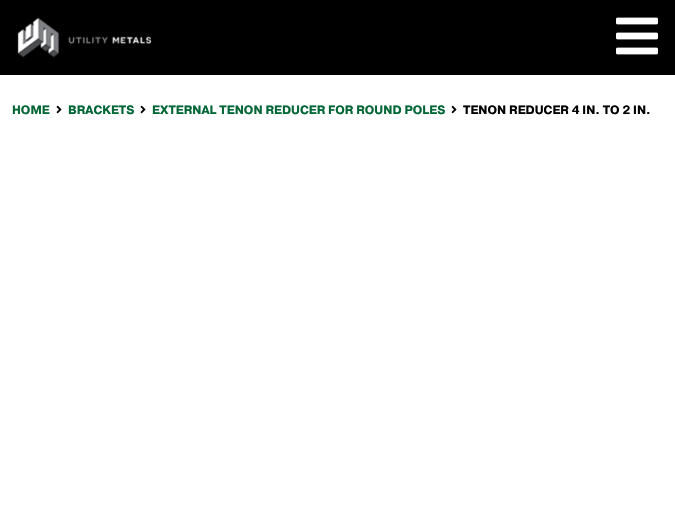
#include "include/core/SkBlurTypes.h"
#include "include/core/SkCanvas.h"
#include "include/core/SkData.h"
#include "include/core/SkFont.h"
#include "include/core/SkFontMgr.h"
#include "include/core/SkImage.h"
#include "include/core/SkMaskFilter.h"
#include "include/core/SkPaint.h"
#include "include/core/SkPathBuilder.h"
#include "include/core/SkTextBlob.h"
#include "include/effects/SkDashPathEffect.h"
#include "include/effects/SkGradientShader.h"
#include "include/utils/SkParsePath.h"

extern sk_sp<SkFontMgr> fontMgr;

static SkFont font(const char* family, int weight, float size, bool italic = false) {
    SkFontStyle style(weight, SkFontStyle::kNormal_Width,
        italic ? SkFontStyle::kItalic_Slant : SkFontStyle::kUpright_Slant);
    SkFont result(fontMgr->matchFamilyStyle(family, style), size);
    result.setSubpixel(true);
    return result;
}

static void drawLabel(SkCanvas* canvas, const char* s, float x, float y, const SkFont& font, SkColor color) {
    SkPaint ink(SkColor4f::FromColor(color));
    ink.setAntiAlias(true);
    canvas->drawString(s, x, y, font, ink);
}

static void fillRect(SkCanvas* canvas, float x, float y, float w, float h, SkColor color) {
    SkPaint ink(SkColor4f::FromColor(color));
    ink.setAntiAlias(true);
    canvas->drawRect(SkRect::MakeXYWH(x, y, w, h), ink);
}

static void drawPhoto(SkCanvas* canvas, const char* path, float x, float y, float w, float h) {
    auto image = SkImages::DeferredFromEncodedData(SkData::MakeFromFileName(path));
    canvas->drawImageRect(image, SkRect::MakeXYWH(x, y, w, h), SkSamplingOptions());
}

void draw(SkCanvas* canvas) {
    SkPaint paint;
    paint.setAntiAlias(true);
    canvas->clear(0xFFFFFFFF);
    fillRect(canvas, 0, 0, 675, 75, 0xFF000000);
    drawPhoto(canvas, "assets/img1.png", 17, 17, 135, 41);
    drawPhoto(canvas, "assets/img2.png", 616, 17, 42, 38);
    SkFont font1 = font("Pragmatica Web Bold", 700, 12);
    drawLabel(canvas, "HOME", 12, 114, font1, 0xFF006635);
    drawPhoto(canvas, "assets/img3.png", 56, 105, 6, 9);
    drawLabel(canvas, "BRACKETS", 68, 114, font1, 0xFF006635);
    drawPhoto(canvas, "assets/img3.png", 140, 105, 6, 9);
    drawLabel(canvas, "EXTERNAL TENON REDUCER FOR ROUND POLES", 152, 114, font1, 0xFF006635);
    drawPhoto(canvas, "assets/img3.png", 451, 105, 6, 9);
    drawLabel(canvas, "TENON REDUCER 4 IN. TO 2 IN.", 463, 114, font1, 0xFF000000);
}
